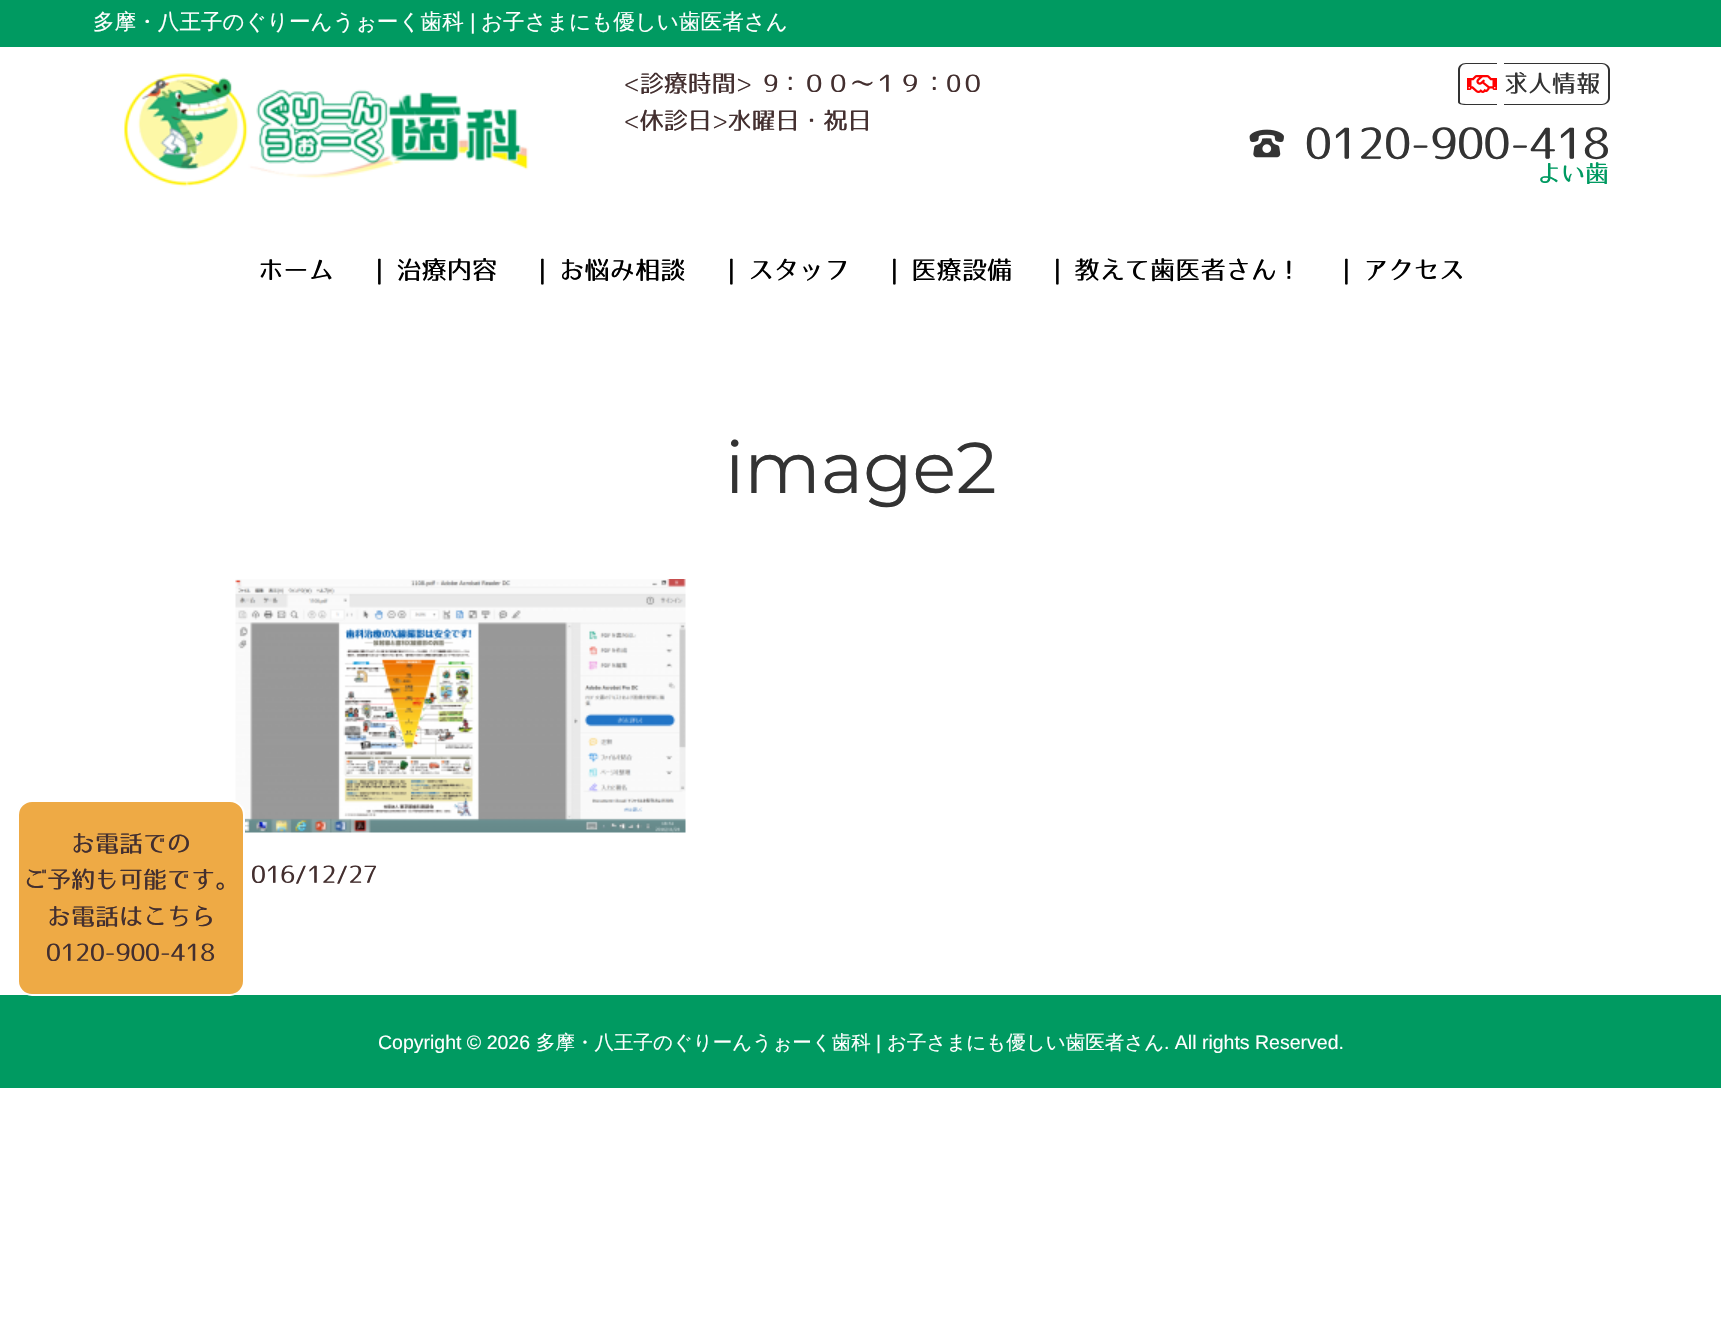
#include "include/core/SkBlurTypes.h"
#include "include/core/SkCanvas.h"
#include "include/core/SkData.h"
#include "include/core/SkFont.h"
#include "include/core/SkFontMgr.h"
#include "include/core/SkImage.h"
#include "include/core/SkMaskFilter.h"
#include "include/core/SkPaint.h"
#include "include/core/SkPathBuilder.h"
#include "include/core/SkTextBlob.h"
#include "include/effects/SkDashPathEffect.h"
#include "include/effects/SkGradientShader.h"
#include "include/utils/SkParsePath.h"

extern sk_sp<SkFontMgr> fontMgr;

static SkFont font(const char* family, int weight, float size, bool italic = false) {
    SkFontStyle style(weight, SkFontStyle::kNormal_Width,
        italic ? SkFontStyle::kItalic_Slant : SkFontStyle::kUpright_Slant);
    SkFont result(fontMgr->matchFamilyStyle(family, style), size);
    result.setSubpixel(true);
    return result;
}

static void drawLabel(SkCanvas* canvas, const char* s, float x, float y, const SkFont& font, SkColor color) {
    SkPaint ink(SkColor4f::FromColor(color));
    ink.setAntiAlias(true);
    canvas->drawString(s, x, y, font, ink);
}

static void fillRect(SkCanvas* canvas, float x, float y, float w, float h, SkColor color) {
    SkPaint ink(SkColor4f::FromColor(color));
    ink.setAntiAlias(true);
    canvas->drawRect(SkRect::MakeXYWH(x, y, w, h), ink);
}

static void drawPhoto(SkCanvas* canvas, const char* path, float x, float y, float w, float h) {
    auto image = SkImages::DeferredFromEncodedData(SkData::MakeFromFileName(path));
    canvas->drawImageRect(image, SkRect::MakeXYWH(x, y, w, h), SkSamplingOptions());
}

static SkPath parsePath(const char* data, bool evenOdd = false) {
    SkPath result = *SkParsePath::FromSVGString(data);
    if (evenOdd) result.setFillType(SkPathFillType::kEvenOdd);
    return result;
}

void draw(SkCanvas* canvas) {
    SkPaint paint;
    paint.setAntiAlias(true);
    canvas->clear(0xFFFFFFFF);
    fillRect(canvas, 0, 0, 1721, 47, 0xFF009A61);
    SkFont font1 = font("WenQuanYi Zen Hei", 500, 21.6f);
    drawLabel(canvas, "多摩・八王子のぐりーんうぉーく歯科", 93, 29, font1, 0xFFFFFFFF);
    SkFont font2 = font("Liberation Sans", 400, 21.6f);
    drawLabel(canvas, "|", 470, 29, font2, 0xFFFFFFFF);
    drawLabel(canvas, "お子さまにも優しい歯医者さん", 481, 29, font1, 0xFFFFFFFF);
    drawPhoto(canvas, "assets/img1.png", 124, 73, 405, 114);
    SkFont font3 = font("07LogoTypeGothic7", 400, 24);
    drawLabel(canvas, "<診療時間> 9：００〜１９：0０", 624, 92, font3, 0xFF432F2F);
    drawLabel(canvas, "<休診日>水曜日・祝日", 624, 129, font3, 0xFF432F2F);
    paint.setColor(0xFF333333);
    canvas->drawPath(parsePath("M1466 63H1497V105H1466C1461 105 1458 104 1458 102V70C1458 66 1461 63 1466 63ZM1466 64H1497V104H1466C1462 104 1460 103 1460 102V70C1460 67 1462 64 1466 64Z", true), paint);
    canvas->drawPath(parsePath("M1504 63H1602C1606 63 1610 66 1610 70V98C1610 102 1606 105 1602 105H1504ZM1504 64H1602C1605 64 1608 67 1608 70V98C1608 101 1605 104 1602 104H1504Z", true), paint);
    drawPhoto(canvas, "assets/img2.png", 1467, 75, 30, 18);
    drawLabel(canvas, "求人情報", 1504, 92, font3, 0xFF333333);
    drawPhoto(canvas, "assets/img3.png", 1249, 129, 35, 29);
    SkFont font4 = font("07LogoTypeGothic7", 400, 43.25f);
    drawLabel(canvas, "0120-900-418", 1305, 159, font4, 0xFF333333);
    drawLabel(canvas, "よい歯", 1537, 182, font3, 0xFF009A61);
    SkFont font5 = font("07LogoTypeGothic7", 400, 25.25f);
    drawLabel(canvas, "ホーム", 258, 279, font5, 0xFF000000);
    drawLabel(canvas, "| 治療内容", 375, 279, font5, 0xFF000000);
    drawLabel(canvas, "| お悩み相談", 538, 279, font5, 0xFF000000);
    drawLabel(canvas, "| スタッフ", 727, 279, font5, 0xFF000000);
    drawLabel(canvas, "| 医療設備", 890, 279, font5, 0xFF000000);
    drawLabel(canvas, "| 教えて歯医者さん！", 1053, 279, font5, 0xFF000000);
    drawLabel(canvas, "| アクセス", 1342, 279, font5, 0xFF000000);
    SkFont font6 = font("Montserrat", 400, 72);
    drawLabel(canvas, "image2", 725, 493, font6, 0xFF333333);
    drawPhoto(canvas, "assets/img4.png", 235, 579, 451, 254);
    drawLabel(canvas, "016/12/27", 251, 883, font3, 0xFF432F2F);
    fillRect(canvas, 0, 995, 1721, 93, 0xFF009A61);
    paint.setColor(0xFFEEAA45);
    canvas->drawRoundRect(SkRect::MakeXYWH(18, 801, 226, 194), 14, 14, paint);
    paint.setStroke(true);
    paint.setStrokeWidth(2);
    paint.setColor(0xFFFFFFFF);
    canvas->drawRoundRect(SkRect::MakeXYWH(18, 801, 226, 194), 14, 14, paint);
    drawLabel(canvas, "お電話での", 71, 852, font3, 0xFF432F2F);
    drawLabel(canvas, "ご予約も可能です。", 23, 888, font3, 0xFF432F2F);
    drawLabel(canvas, "お電話はこちら", 47, 925, font3, 0xFF432F2F);
    drawLabel(canvas, "0120-900-418", 46, 961, font3, 0xFF432F2F);
    SkFont font7 = font("Liberation Sans", 400, 19.5f);
    drawLabel(canvas, "Copyright © 2026", 378, 1049, font7, 0xFFFFFFFF);
    SkFont font8 = font("WenQuanYi Zen Hei", 500, 19.5f);
    drawLabel(canvas, "多摩・八王子のぐりーんうぉーく歯科", 536, 1049, font8, 0xFFFFFFFF);
    drawLabel(canvas, "|", 876, 1049, font7, 0xFFFFFFFF);
    drawLabel(canvas, "お子さまにも優しい歯医者さん", 887, 1049, font8, 0xFFFFFFFF);
    drawLabel(canvas, ". All rights Reserved.", 1164, 1049, font7, 0xFFFFFFFF);
}
